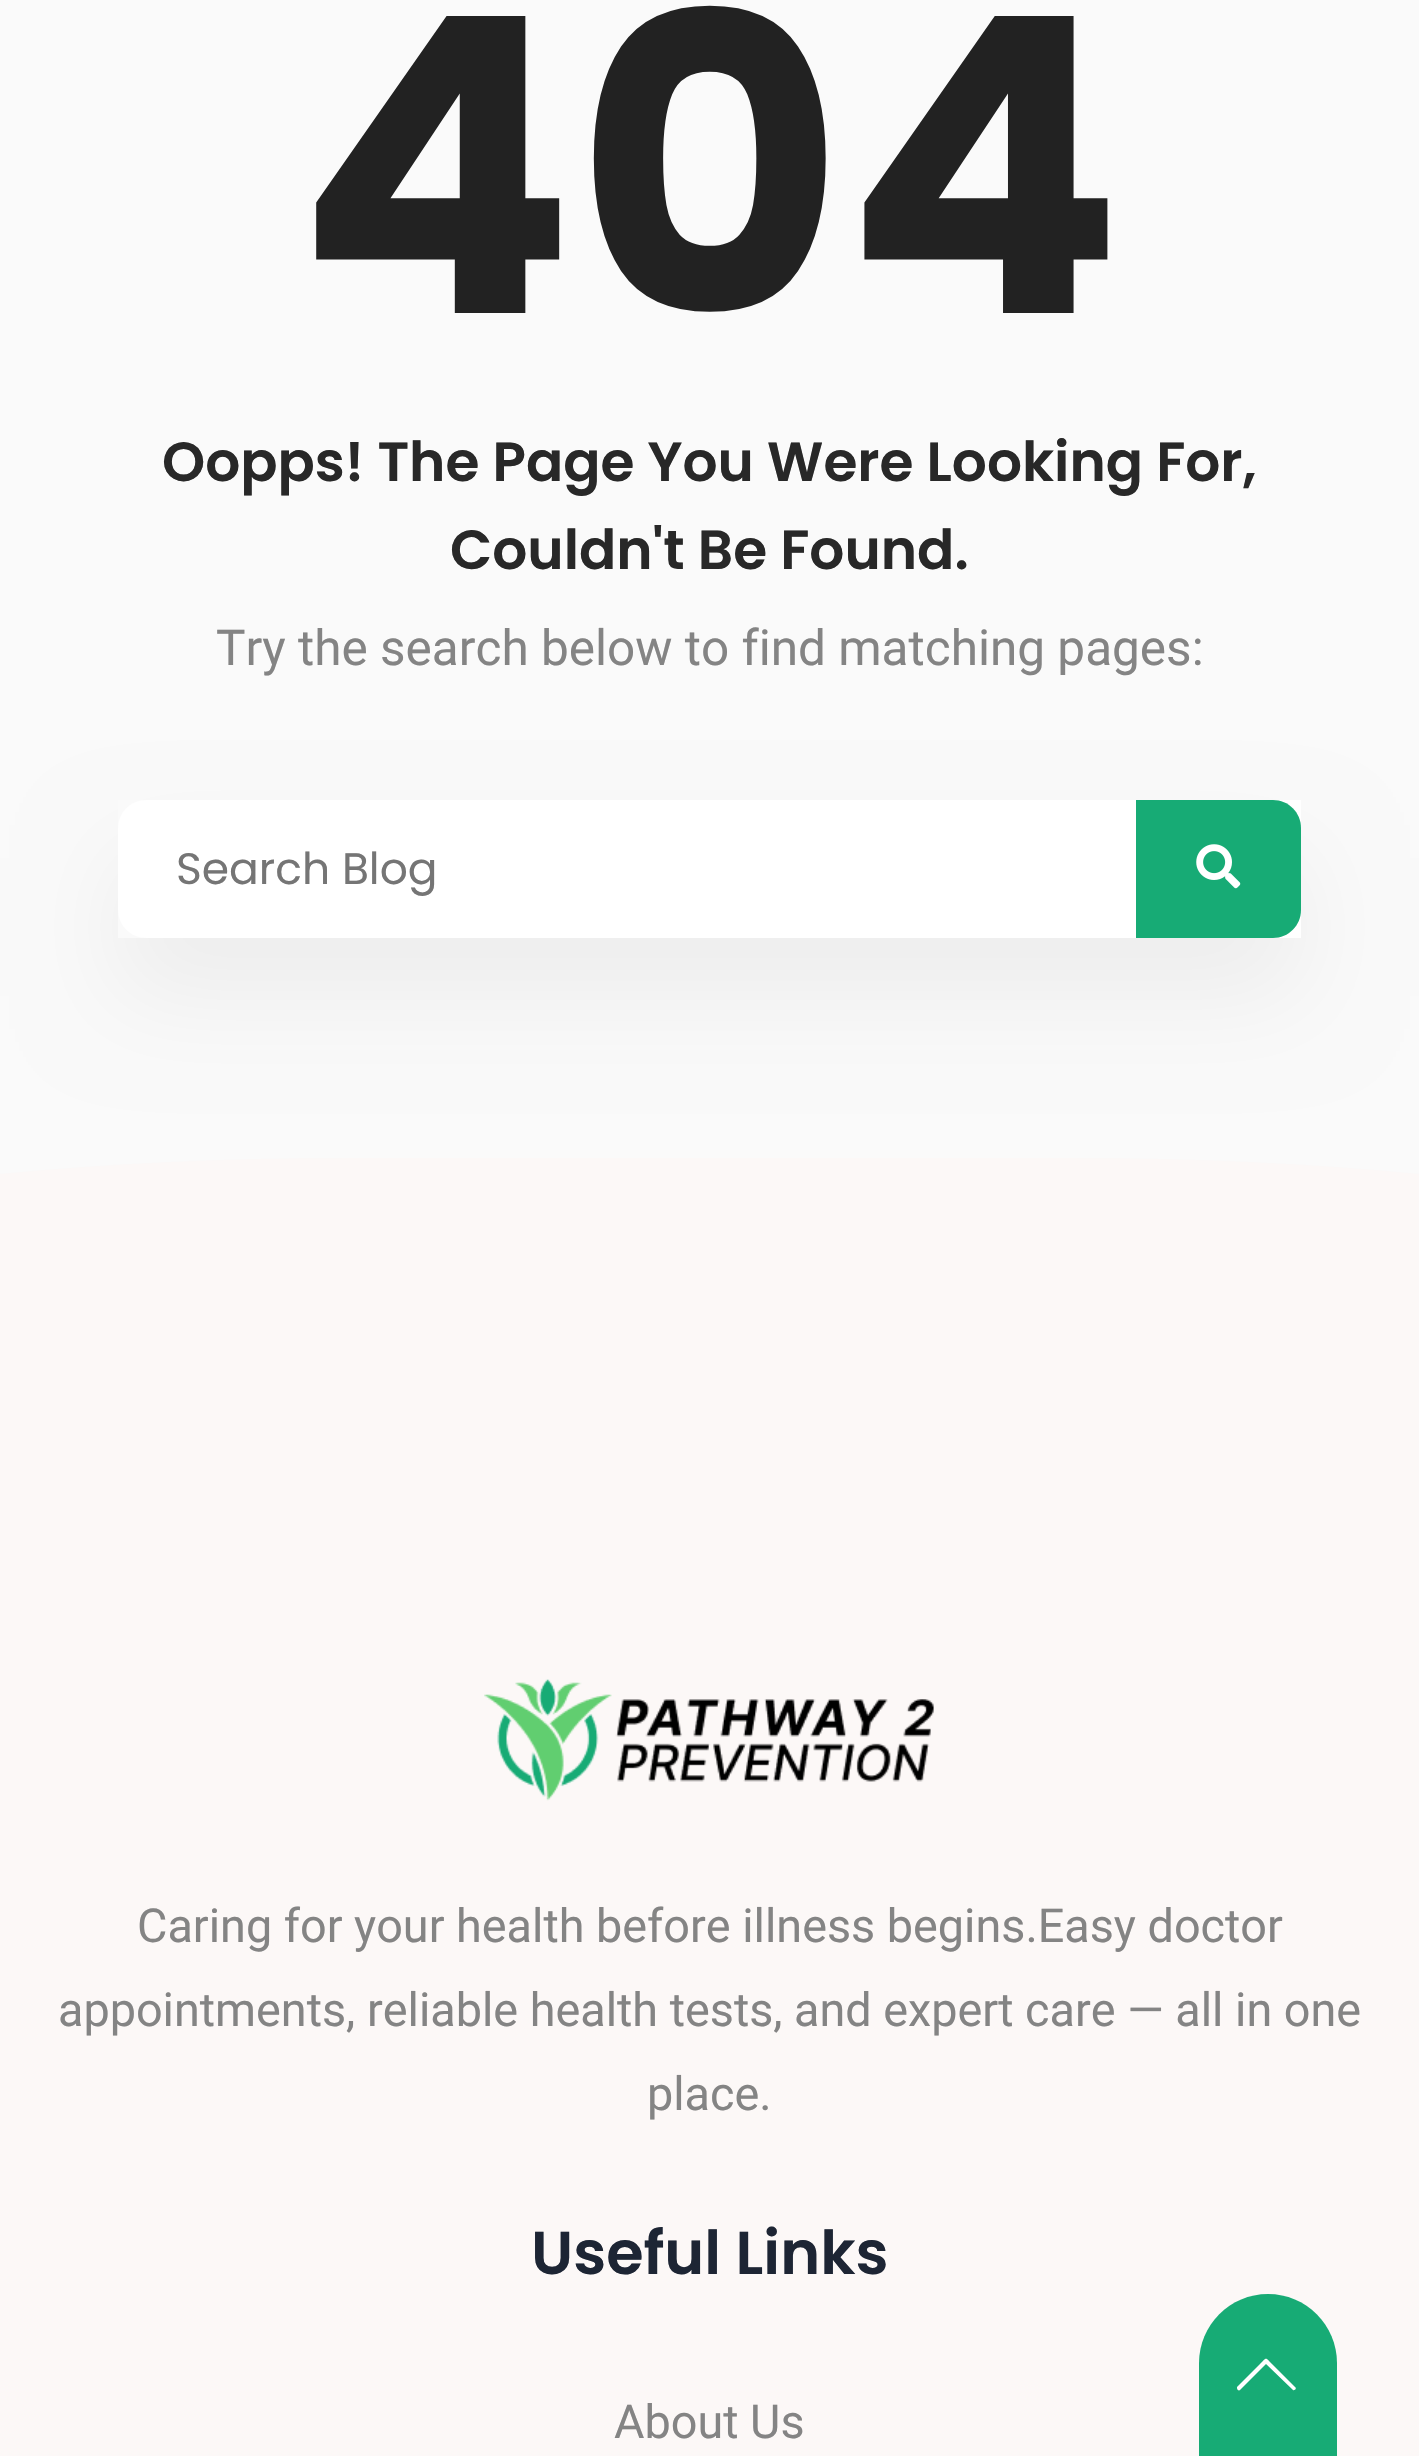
#include "include/core/SkBlurTypes.h"
#include "include/core/SkCanvas.h"
#include "include/core/SkData.h"
#include "include/core/SkFont.h"
#include "include/core/SkFontMgr.h"
#include "include/core/SkImage.h"
#include "include/core/SkMaskFilter.h"
#include "include/core/SkPaint.h"
#include "include/core/SkPathBuilder.h"
#include "include/core/SkTextBlob.h"
#include "include/effects/SkDashPathEffect.h"
#include "include/effects/SkGradientShader.h"
#include "include/utils/SkParsePath.h"

extern sk_sp<SkFontMgr> fontMgr;

static SkFont font(const char* family, int weight, float size, bool italic = false) {
    SkFontStyle style(weight, SkFontStyle::kNormal_Width,
        italic ? SkFontStyle::kItalic_Slant : SkFontStyle::kUpright_Slant);
    SkFont result(fontMgr->matchFamilyStyle(family, style), size);
    result.setSubpixel(true);
    return result;
}

static void drawLabel(SkCanvas* canvas, const char* s, float x, float y, const SkFont& font, SkColor color) {
    SkPaint ink(SkColor4f::FromColor(color));
    ink.setAntiAlias(true);
    canvas->drawString(s, x, y, font, ink);
}

static void drawPhoto(SkCanvas* canvas, const char* path, float x, float y, float w, float h) {
    auto image = SkImages::DeferredFromEncodedData(SkData::MakeFromFileName(path));
    canvas->drawImageRect(image, SkRect::MakeXYWH(x, y, w, h), SkSamplingOptions());
}

static SkPath parsePath(const char* data, bool evenOdd = false) {
    SkPath result = *SkParsePath::FromSVGString(data);
    if (evenOdd) result.setFillType(SkPathFillType::kEvenOdd);
    return result;
}

void draw(SkCanvas* canvas) {
    SkPaint paint;
    paint.setAntiAlias(true);
    canvas->clear(0xFFFAFAFA);
    SkFont font1 = font("Poppins", 700, 412.5f);
    drawLabel(canvas, "404", 296, 313, font1, 0xFF222222);
    SkFont font2 = font("Poppins", 600, 55);
    drawLabel(canvas, "Oopps! The Page You Were Looking For,", 162, 481, font2, 0xFF282828);
    drawLabel(canvas, "Couldn't Be Found.", 450, 569, font2, 0xFF282828);
    SkFont font3 = font("Roboto", 400, 49.5f);
    drawLabel(canvas, "Try the search below to find matching pages:", 216, 665, font3, 0xFF848484);
    canvas->save();
    canvas->clipPath(parsePath("M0 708H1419V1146H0ZM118 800H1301V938H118Z", true), true);
    paint.setColor(0x0D000000);
    paint.setMaskFilter(SkMaskFilter::MakeBlur(kNormal_SkBlurStyle, 49.5f));
    canvas->drawRect(SkRect::MakeXYWH(118, 858, 1183, 138), paint);
    paint.setMaskFilter(nullptr);
    canvas->restore();
    paint.setColor(0xFFFFFFFF);
    canvas->drawPath(parsePath("M146 800H1301V938H146C130.5 938 118 925.5 118 910V828C118 812.5 130.5 800 146 800Z"), paint);
    SkFont font4 = font("Poppins", 400, 44);
    drawLabel(canvas, "Search Blog", 176, 884, font4, 0xFF757575);
    paint.setColor(0xFF17AB75);
    canvas->drawPath(parsePath("M1136 800H1273C1288.5 800 1301 812.5 1301 828V910C1301 925.5 1288.5 938 1273 938H1136Z"), paint);
    drawPhoto(canvas, "assets/img1.png", 1196, 844, 45, 45);
    paint.setColor(0xFFFCF8F7);
    canvas->drawPath(parsePath("M348 1158H1071C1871 1158 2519 1404 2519 1708V1983C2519 2287 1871 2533 1071 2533H348C-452 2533-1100 2287-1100 1983V1708C-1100 1404-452 1158 348 1158Z"), paint);
    drawPhoto(canvas, "assets/img2.png", 484, 1679, 450, 122);
    SkFont font5 = font("Roboto", 400, 46.75f);
    drawLabel(canvas, "Caring for your health before illness begins.Easy doctor", 137, 1942, font5, 0xFF848484);
    drawLabel(canvas, "appointments, reliable health tests, and expert care — all in one", 58, 2026, font5, 0xFF848484);
    drawLabel(canvas, "place.", 647, 2110, font5, 0xFF848484);
    SkFont font6 = font("Poppins", 600, 60.5f);
    drawLabel(canvas, "Useful Links", 531, 2274, font6, 0xFF1D2534);
    drawLabel(canvas, "About Us", 614, 2438, font5, 0xFF848484);
    paint.setColor(0xFF17AB75);
    canvas->drawPath(parsePath("M1268 2294C1306 2294 1337 2325 1337 2363V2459H1199V2363C1199 2325 1230 2294 1268 2294Z"), paint);
    paint.setColor(0xFFFFFFFF);
    canvas->drawPath(parsePath("M1295 2387C1297 2388 1295 2391 1293 2390L1266 2364L1240 2390C1239 2391 1237 2390 1237 2388V2387L1260 2364C1267 2357 1265 2357 1272 2364Z"), paint);
}
